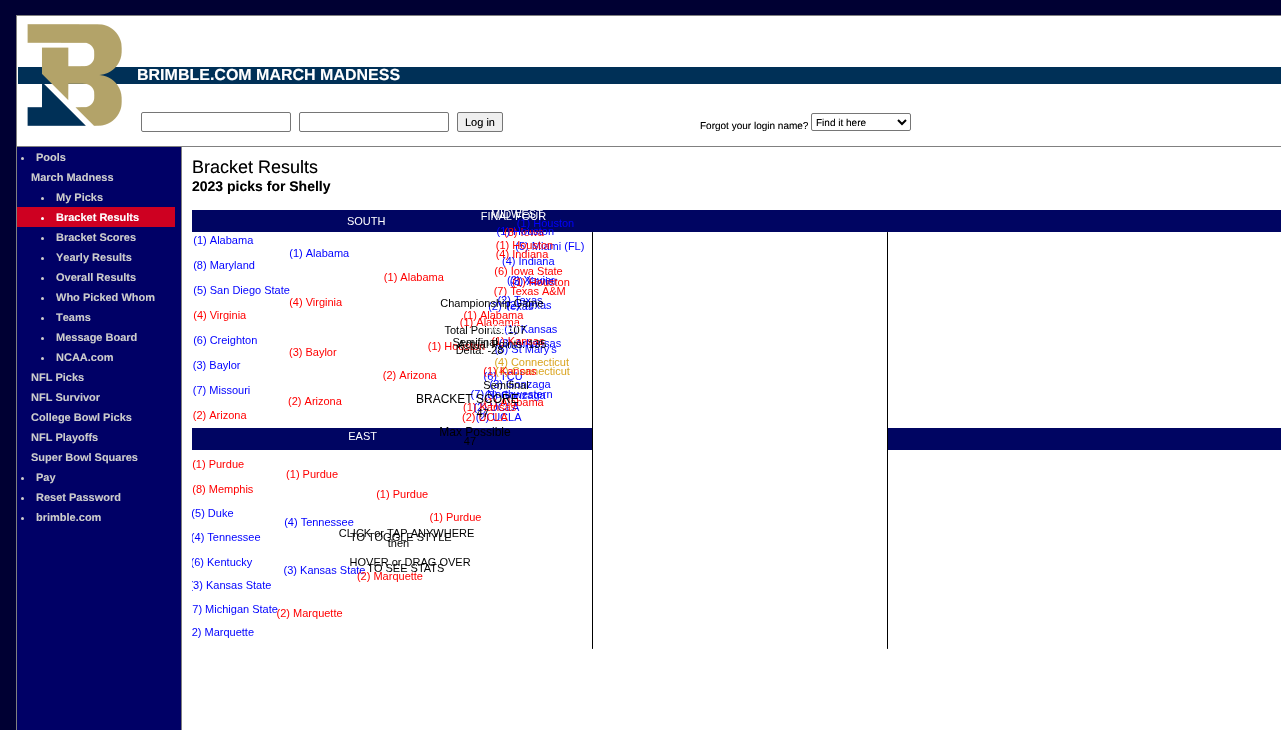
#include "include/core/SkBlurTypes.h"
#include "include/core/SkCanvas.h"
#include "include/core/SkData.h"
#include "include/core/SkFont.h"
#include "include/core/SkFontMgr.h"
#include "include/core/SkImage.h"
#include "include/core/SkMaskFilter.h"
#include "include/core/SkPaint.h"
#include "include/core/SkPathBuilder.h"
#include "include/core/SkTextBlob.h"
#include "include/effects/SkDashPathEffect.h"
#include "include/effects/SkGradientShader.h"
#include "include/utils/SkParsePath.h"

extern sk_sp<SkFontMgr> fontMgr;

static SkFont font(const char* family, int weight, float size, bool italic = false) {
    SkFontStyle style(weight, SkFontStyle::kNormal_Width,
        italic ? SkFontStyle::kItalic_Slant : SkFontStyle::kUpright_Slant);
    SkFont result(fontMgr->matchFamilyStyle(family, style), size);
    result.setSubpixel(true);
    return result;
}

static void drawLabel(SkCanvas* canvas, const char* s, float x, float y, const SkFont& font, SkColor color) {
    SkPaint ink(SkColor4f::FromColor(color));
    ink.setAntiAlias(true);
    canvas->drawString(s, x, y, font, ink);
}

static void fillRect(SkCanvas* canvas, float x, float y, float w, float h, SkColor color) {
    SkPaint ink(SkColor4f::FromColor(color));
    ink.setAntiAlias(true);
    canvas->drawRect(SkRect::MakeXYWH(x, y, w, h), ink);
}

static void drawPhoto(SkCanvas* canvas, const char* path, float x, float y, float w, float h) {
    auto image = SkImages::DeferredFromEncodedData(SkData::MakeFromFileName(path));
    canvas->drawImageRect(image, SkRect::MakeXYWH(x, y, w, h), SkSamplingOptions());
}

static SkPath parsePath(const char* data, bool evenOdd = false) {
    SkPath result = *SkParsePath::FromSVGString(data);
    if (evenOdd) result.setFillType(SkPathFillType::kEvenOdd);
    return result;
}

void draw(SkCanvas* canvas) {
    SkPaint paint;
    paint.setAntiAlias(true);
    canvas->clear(0xFF000033);
    fillRect(canvas, 16, 15, 1265, 1, 0xFF808080);
    fillRect(canvas, 16, 15, 1, 715, 0xFF808080);
    fillRect(canvas, 17, 16, 1264, 130, 0xFFFFFFFF);
    drawPhoto(canvas, "assets/img1.png", 18, 24, 1263, 102);
    SkFont font1 = font("Liberation Sans", 700, 16);
    drawLabel(canvas, "BRIMBLE.COM MARCH MADNESS", 137, 80, font1, 0xFFFFFFFF);
    paint.setStroke(true);
    paint.setStrokeWidth(1);
    paint.setColor(0xFF767676);
    canvas->drawRoundRect(SkRect::MakeXYWH(141.5f, 112.5f, 149, 19), 1.5f, 1.5f, paint);
    canvas->drawRoundRect(SkRect::MakeXYWH(299.5f, 112.5f, 149, 19), 1.5f, 1.5f, paint);
    paint.setStroke(false);
    paint.setColor(0xFFEFEFEF);
    canvas->drawRoundRect(SkRect::MakeXYWH(457.5f, 112.5f, 45, 19), 1.5f, 1.5f, paint);
    paint.setStroke(true);
    paint.setColor(0xFF767676);
    canvas->drawRoundRect(SkRect::MakeXYWH(457.5f, 112.5f, 45, 19), 1.5f, 1.5f, paint);
    SkFont font2 = font("Liberation Sans", 400, 11);
    drawLabel(canvas, "Log in", 465, 126, font2, 0xFF000000);
    SkFont font3 = font("Liberation Sans", 400, 10);
    drawLabel(canvas, "Forgot your login name?", 700, 129, font3, 0xFF000000);
    canvas->drawRoundRect(SkRect::MakeXYWH(811.5f, 113.5f, 99, 17), 1.5f, 1.5f, paint);
    paint.setStrokeWidth(2);
    paint.setColor(0xFF000000);
    canvas->drawPath(parsePath("M898 120L902 124L906 120"), paint);
    drawLabel(canvas, "Find it here", 816, 126, font3, 0xFF000000);
    fillRect(canvas, 17, 147, 164, 583, 0xFF000066);
    fillRect(canvas, 181, 146, 1100, 1, 0xFF808080);
    fillRect(canvas, 181, 146, 1, 584, 0xFF808080);
    fillRect(canvas, 16, 146, 166, 1, 0xFF808080);
    paint.setStroke(false);
    paint.setColor(0xFFCCCCCC);
    canvas->drawCircle(22.5f, 158.5f, 1.5f, paint);
    SkFont font4 = font("Liberation Sans", 700, 11);
    drawLabel(canvas, "Pools", 36, 161, font4, 0xFFCCCCCC);
    drawLabel(canvas, "March Madness", 31, 181, font4, 0xFFCCCCCC);
    canvas->drawCircle(42.5f, 198.5f, 1.5f, paint);
    drawLabel(canvas, "My Picks", 56, 201, font4, 0xFFCCCCCC);
    fillRect(canvas, 17, 207, 158, 20, 0xFFCE0021);
    paint.setColor(0xFFFFFFFF);
    canvas->drawCircle(42.5f, 218.5f, 1.5f, paint);
    drawLabel(canvas, "Bracket Results", 56, 221, font4, 0xFFFFFFFF);
    paint.setColor(0xFFCCCCCC);
    canvas->drawCircle(42.5f, 238.5f, 1.5f, paint);
    drawLabel(canvas, "Bracket Scores", 56, 241, font4, 0xFFCCCCCC);
    canvas->drawCircle(42.5f, 258.5f, 1.5f, paint);
    drawLabel(canvas, "Yearly Results", 56, 261, font4, 0xFFCCCCCC);
    canvas->drawCircle(42.5f, 278.5f, 1.5f, paint);
    drawLabel(canvas, "Overall Results", 56, 281, font4, 0xFFCCCCCC);
    canvas->drawCircle(42.5f, 298.5f, 1.5f, paint);
    drawLabel(canvas, "Who Picked Whom", 56, 301, font4, 0xFFCCCCCC);
    canvas->drawCircle(42.5f, 318.5f, 1.5f, paint);
    drawLabel(canvas, "Teams", 56, 321, font4, 0xFFCCCCCC);
    canvas->drawCircle(42.5f, 338.5f, 1.5f, paint);
    drawLabel(canvas, "Message Board", 56, 341, font4, 0xFFCCCCCC);
    canvas->drawCircle(42.5f, 358.5f, 1.5f, paint);
    drawLabel(canvas, "NCAA.com", 56, 361, font4, 0xFFCCCCCC);
    drawLabel(canvas, "NFL Picks", 31, 381, font4, 0xFFCCCCCC);
    drawLabel(canvas, "NFL Survivor", 31, 401, font4, 0xFFCCCCCC);
    drawLabel(canvas, "College Bowl Picks", 31, 421, font4, 0xFFCCCCCC);
    drawLabel(canvas, "NFL Playoffs", 31, 441, font4, 0xFFCCCCCC);
    drawLabel(canvas, "Super Bowl Squares", 31, 461, font4, 0xFFCCCCCC);
    canvas->drawCircle(22.5f, 478.5f, 1.5f, paint);
    drawLabel(canvas, "Pay", 36, 481, font4, 0xFFCCCCCC);
    canvas->drawCircle(22.5f, 498.5f, 1.5f, paint);
    drawLabel(canvas, "Reset Password", 36, 501, font4, 0xFFCCCCCC);
    canvas->drawCircle(22.5f, 518.5f, 1.5f, paint);
    drawLabel(canvas, "brimble.com", 36, 521, font4, 0xFFCCCCCC);
    fillRect(canvas, 182, 147, 1099, 583, 0xFFFFFFFF);
    SkFont font5 = font("Liberation Sans", 400, 18);
    drawLabel(canvas, "Bracket Results", 192, 173, font5, 0xFF000000);
    SkFont font6 = font("Liberation Sans", 700, 14);
    drawLabel(canvas, "2023 picks for Shelly", 192, 191, font6, 0xFF000000);
    drawPhoto(canvas, "assets/img2.png", 192, 210, 1089, 439);
}
